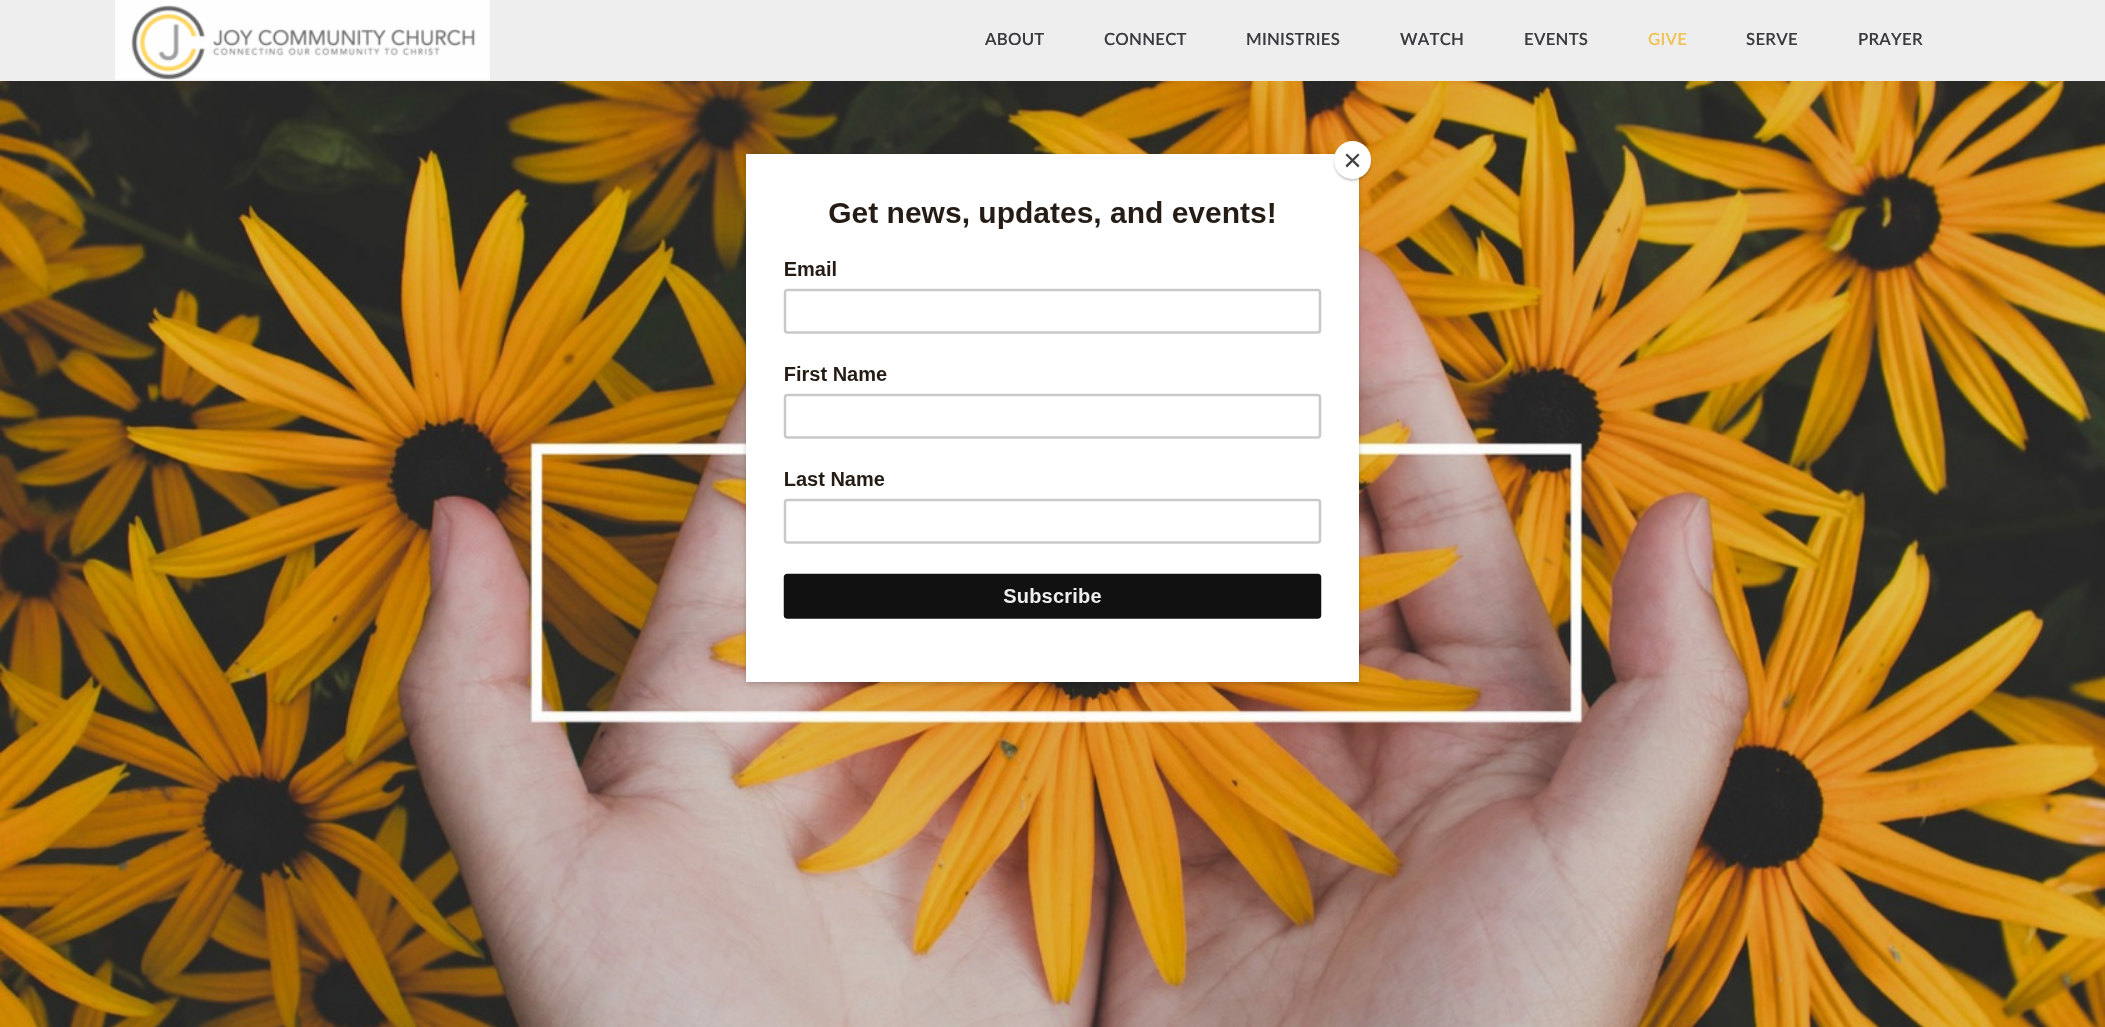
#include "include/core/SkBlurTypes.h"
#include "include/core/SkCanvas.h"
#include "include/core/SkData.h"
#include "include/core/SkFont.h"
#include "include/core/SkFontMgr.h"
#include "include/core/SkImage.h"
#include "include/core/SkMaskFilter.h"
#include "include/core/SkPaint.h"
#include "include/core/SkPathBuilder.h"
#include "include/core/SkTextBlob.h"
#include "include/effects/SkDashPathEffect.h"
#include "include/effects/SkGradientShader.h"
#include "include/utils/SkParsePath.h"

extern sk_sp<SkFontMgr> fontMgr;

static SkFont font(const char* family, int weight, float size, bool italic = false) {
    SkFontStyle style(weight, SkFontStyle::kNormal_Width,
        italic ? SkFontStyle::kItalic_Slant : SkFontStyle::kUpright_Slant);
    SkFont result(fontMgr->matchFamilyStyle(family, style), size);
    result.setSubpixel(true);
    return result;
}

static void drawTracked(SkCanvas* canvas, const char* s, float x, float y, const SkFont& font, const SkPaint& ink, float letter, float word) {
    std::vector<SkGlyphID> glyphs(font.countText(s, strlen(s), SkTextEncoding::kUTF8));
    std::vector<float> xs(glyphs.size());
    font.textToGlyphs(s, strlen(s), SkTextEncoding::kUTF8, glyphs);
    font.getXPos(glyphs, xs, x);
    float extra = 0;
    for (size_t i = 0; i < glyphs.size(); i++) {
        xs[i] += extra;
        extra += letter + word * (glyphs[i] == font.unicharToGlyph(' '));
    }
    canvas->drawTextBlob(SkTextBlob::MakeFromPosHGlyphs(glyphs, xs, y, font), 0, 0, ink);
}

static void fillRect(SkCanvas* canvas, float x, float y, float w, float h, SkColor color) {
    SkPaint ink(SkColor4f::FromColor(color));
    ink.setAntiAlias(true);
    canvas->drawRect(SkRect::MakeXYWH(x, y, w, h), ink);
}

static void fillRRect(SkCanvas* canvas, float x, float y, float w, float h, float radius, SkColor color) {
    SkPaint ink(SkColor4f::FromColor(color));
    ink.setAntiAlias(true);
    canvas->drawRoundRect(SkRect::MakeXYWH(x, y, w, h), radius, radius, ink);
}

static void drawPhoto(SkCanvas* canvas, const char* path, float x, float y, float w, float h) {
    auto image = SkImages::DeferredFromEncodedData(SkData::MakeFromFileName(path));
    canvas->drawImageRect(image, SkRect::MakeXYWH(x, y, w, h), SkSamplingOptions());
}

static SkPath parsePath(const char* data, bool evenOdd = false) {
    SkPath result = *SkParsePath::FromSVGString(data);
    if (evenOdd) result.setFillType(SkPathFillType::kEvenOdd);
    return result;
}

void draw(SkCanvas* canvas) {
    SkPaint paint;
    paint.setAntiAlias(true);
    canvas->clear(0xFFFFFFFF);
    fillRect(canvas, 0, 0, 2105, 81, 0xFFEEEEEE);
    drawPhoto(canvas, "assets/img1.png", 115, 0, 375, 80);
    SkFont font1 = font("Lato", 600, 16.75f);
    paint.setColor(0xFF39393E);
    drawTracked(canvas, "ABOUT", 985, 45, font1, paint, 0.25f, 0);
    drawTracked(canvas, "CONNECT", 1104, 45, font1, paint, 0.25f, 0);
    drawTracked(canvas, "MINISTRIES", 1246, 45, font1, paint, 0.25f, 0);
    drawTracked(canvas, "WATCH", 1400, 45, font1, paint, 0.25f, 0);
    drawTracked(canvas, "EVENTS", 1524, 45, font1, paint, 0.25f, 0);
    paint.setColor(0xFFEEC355);
    drawTracked(canvas, "GIVE", 1648, 45, font1, paint, 0.25f, 0);
    paint.setColor(0xFF39393E);
    drawTracked(canvas, "SERVE", 1746, 45, font1, paint, 0.25f, 0);
    drawTracked(canvas, "PRAYER", 1858, 45, font1, paint, 0.25f, 0);
    drawPhoto(canvas, "assets/img2.png", 0, 81, 2105, 946);
    paint.setColor(0x33000000);
    paint.setMaskFilter(SkMaskFilter::MakeBlur(kNormal_SkBlurStyle, 2.5f));
    canvas->drawRect(SkRect::MakeXYWH(746, 156, 613, 528), paint);
    paint.setMaskFilter(nullptr);
    drawPhoto(canvas, "assets/img3.png", 746, 154, 613, 528);
    paint.setMaskFilter(SkMaskFilter::MakeBlur(kNormal_SkBlurStyle, 1));
    canvas->drawRoundRect(SkRect::MakeXYWH(1334, 144, 37, 37), 18.5f, 18.5f, paint);
    paint.setMaskFilter(nullptr);
    fillRRect(canvas, 1334, 141, 37, 38, 18.5f, 0xFFFFFFFF);
    paint.setColor(0xFF414141);
    canvas->drawPath(parsePath("M1358 153.5L1359.5 155L1347 167.5L1345.5 165.5Z"), paint);
    canvas->drawPath(parsePath("M1345.5 155L1347 153.5L1359.5 165.5L1358 167.5Z"), paint);
}
